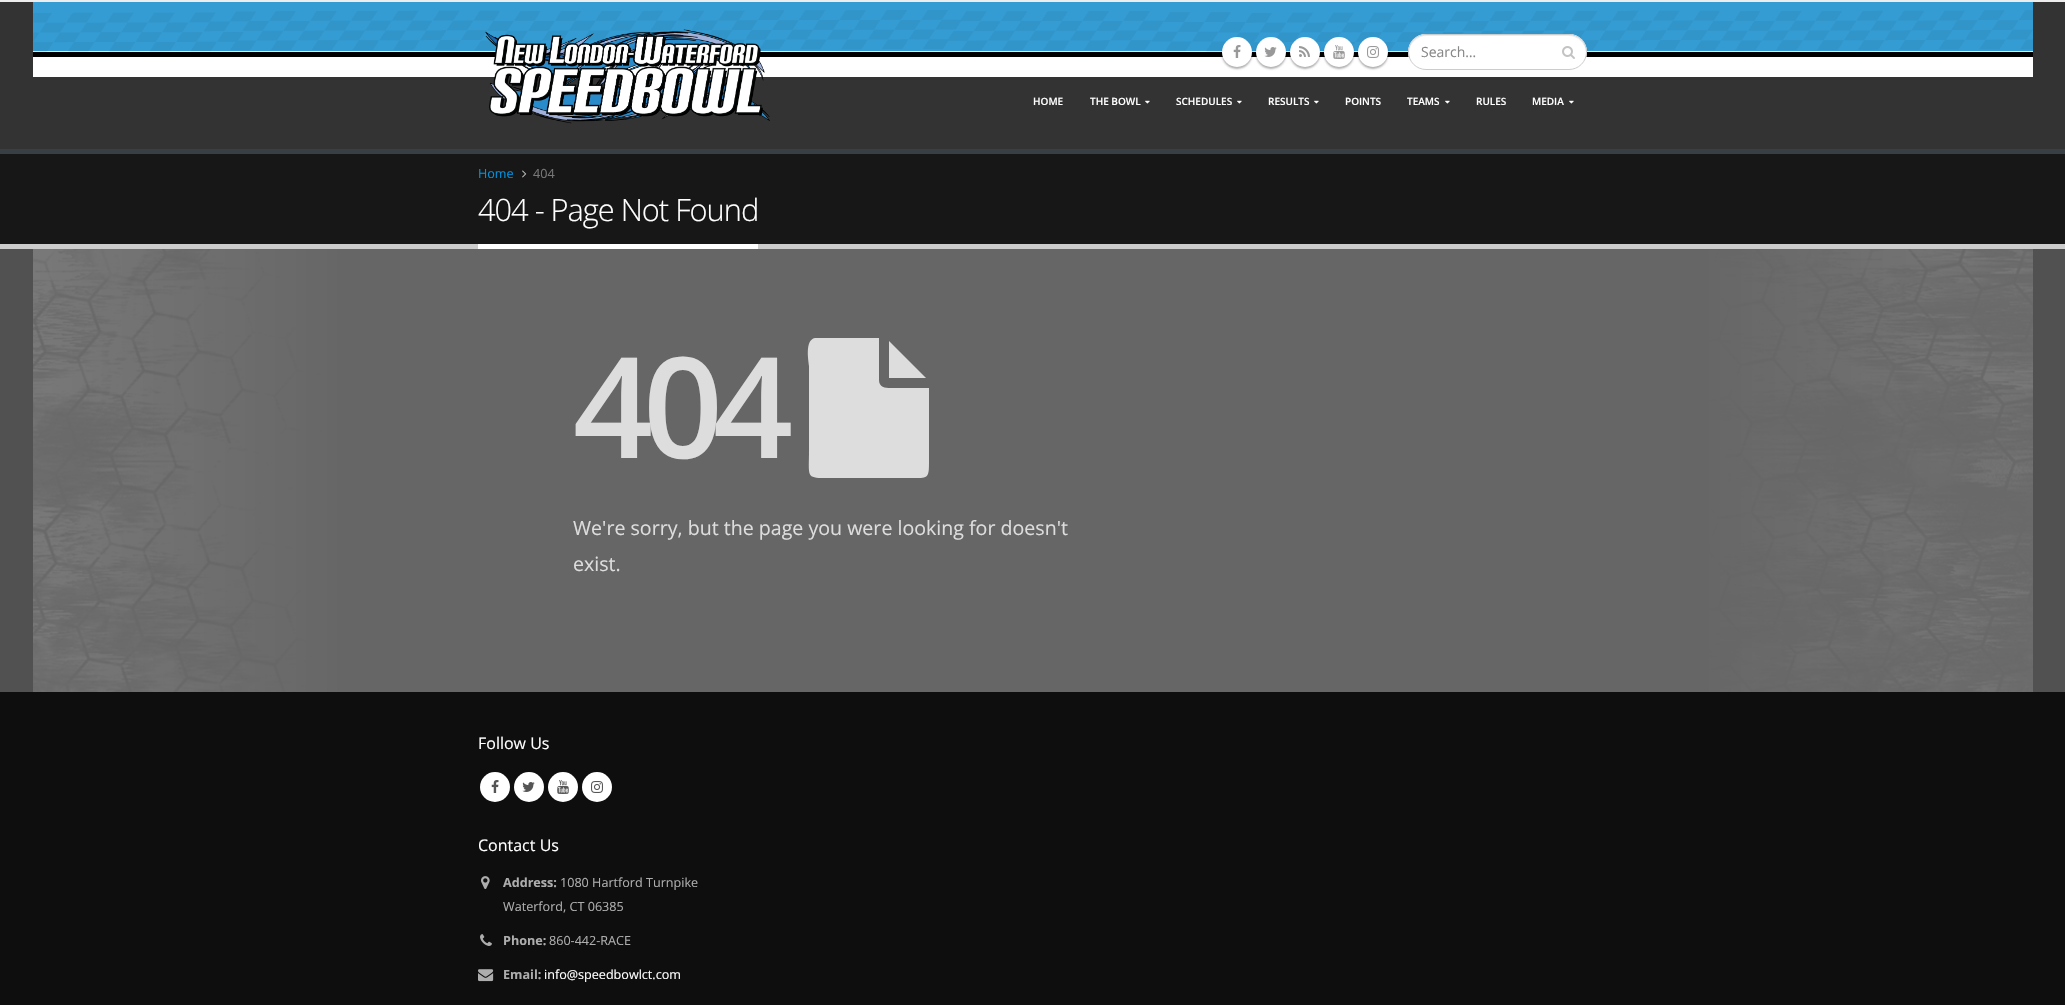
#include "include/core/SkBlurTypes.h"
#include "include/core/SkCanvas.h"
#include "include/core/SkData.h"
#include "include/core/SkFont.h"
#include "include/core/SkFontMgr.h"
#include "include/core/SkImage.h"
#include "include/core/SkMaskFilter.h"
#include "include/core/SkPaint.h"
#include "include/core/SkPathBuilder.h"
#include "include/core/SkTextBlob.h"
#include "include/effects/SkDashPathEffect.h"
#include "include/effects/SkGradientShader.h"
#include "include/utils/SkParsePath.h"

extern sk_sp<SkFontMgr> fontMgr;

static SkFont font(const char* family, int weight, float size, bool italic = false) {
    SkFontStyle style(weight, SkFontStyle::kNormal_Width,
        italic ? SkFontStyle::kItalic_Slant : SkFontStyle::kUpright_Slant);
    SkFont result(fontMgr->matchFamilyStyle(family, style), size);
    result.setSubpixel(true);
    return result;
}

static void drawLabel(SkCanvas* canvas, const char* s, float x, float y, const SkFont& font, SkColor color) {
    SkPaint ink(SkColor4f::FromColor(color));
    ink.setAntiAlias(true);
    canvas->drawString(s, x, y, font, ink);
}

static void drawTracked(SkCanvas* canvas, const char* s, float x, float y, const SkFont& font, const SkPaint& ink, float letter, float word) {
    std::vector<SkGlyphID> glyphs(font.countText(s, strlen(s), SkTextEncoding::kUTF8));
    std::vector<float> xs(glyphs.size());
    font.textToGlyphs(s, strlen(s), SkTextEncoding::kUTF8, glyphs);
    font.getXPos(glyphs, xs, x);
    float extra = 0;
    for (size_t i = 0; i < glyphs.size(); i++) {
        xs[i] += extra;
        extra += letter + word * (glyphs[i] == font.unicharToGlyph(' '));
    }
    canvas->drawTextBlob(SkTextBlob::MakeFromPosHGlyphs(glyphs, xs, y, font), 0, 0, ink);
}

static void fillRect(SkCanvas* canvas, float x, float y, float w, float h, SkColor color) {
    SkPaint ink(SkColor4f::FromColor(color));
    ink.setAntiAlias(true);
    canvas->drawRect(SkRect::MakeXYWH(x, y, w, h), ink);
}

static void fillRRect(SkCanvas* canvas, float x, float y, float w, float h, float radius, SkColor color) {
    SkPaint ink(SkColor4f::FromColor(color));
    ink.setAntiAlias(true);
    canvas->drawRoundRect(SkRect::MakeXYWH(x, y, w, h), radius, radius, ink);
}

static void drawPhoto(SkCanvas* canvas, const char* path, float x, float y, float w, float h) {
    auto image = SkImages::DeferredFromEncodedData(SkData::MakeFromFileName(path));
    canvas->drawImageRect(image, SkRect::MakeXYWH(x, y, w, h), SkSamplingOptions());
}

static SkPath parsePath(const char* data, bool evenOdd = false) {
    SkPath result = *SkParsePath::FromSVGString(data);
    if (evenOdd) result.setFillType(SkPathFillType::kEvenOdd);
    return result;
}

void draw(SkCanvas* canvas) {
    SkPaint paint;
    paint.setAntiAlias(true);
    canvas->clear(0xFFEDEDED);
    fillRect(canvas, 0, 2, 2065, 147, 0xFF333333);
    drawPhoto(canvas, "assets/img1.png", 33, 2, 2000, 75);
    drawPhoto(canvas, "assets/img2.png", 485, 29, 285, 95);
    paint.setColor(0x4D000000);
    paint.setMaskFilter(SkMaskFilter::MakeBlur(kNormal_SkBlurStyle, 1));
    canvas->drawRoundRect(SkRect::MakeXYWH(1222, 39, 30, 30), 15, 15, paint);
    paint.setMaskFilter(nullptr);
    paint.setColor(0xFFFFFFFF);
    canvas->drawCircle(1237, 52, 15, paint);
    drawPhoto(canvas, "assets/img3.png", 1233, 45, 8, 13);
    paint.setColor(0x4D000000);
    paint.setMaskFilter(SkMaskFilter::MakeBlur(kNormal_SkBlurStyle, 1));
    canvas->drawRoundRect(SkRect::MakeXYWH(1256, 39, 30, 30), 15, 15, paint);
    paint.setMaskFilter(nullptr);
    paint.setColor(0xFFFFFFFF);
    canvas->drawCircle(1271, 52, 15, paint);
    drawPhoto(canvas, "assets/img4.png", 1264, 47, 13, 10);
    paint.setColor(0x4D000000);
    paint.setMaskFilter(SkMaskFilter::MakeBlur(kNormal_SkBlurStyle, 1));
    canvas->drawRoundRect(SkRect::MakeXYWH(1290, 39, 30, 30), 15, 15, paint);
    paint.setMaskFilter(nullptr);
    paint.setColor(0xFFFFFFFF);
    canvas->drawCircle(1305, 52, 15, paint);
    drawPhoto(canvas, "assets/img5.png", 1299, 46, 11, 11);
    paint.setColor(0x4D000000);
    paint.setMaskFilter(SkMaskFilter::MakeBlur(kNormal_SkBlurStyle, 1));
    canvas->drawRoundRect(SkRect::MakeXYWH(1324, 39, 30, 30), 15, 15, paint);
    paint.setMaskFilter(nullptr);
    paint.setColor(0xFFFFFFFF);
    canvas->drawCircle(1339, 52, 15, paint);
    drawPhoto(canvas, "assets/img6.png", 1333, 45, 12, 14);
    paint.setColor(0x4D000000);
    paint.setMaskFilter(SkMaskFilter::MakeBlur(kNormal_SkBlurStyle, 1));
    canvas->drawRoundRect(SkRect::MakeXYWH(1358, 39, 30, 30), 15, 15, paint);
    paint.setMaskFilter(nullptr);
    paint.setColor(0xFFFFFFFF);
    canvas->drawCircle(1373, 52, 15, paint);
    drawPhoto(canvas, "assets/img7.png", 1367, 46, 12, 12);
    fillRRect(canvas, 1408, 34, 179, 36, 18, 0xFFFFFFFF);
    paint.setColor(0xFFECECEC);
    canvas->drawPath(parsePath("M1426 36H1569C1578 36 1586 44 1586 53V52C1586 43 1578 35 1569 35H1426C1417 35 1409 43 1409 52V53C1409 44 1417 36 1426 36Z"), paint);
    paint.setStroke(true);
    paint.setStrokeWidth(1);
    paint.setColor(0xFFCCCCCC);
    canvas->drawRoundRect(SkRect::MakeXYWH(1408.5f, 34.5f, 178, 35), 17.5f, 17.5f, paint);
    SkFont font1 = font("Open Sans", 400, 14);
    drawLabel(canvas, "Search…", 1421, 57, font1, 0xFF888888);
    drawPhoto(canvas, "assets/img8.png", 1562, 46, 13, 13);
    SkFont font2 = font("Open Sans", 600, 10);
    drawLabel(canvas, "HOME", 1033, 105, font2, 0xFFFFFFFF);
    drawLabel(canvas, "THE BOWL", 1090, 105, font2, 0xFFFFFFFF);
    drawPhoto(canvas, "assets/img9.png", 1145, 100, 5, 4);
    drawLabel(canvas, "SCHEDULES", 1176, 105, font2, 0xFFFFFFFF);
    drawPhoto(canvas, "assets/img9.png", 1237, 100, 5, 4);
    drawLabel(canvas, "RESULTS", 1268, 105, font2, 0xFFFFFFFF);
    drawPhoto(canvas, "assets/img9.png", 1314, 100, 5, 4);
    drawLabel(canvas, "POINTS", 1345, 105, font2, 0xFFFFFFFF);
    drawLabel(canvas, "TEAMS", 1407, 105, font2, 0xFFFFFFFF);
    drawPhoto(canvas, "assets/img9.png", 1445, 100, 5, 4);
    drawLabel(canvas, "RULES", 1476, 105, font2, 0xFFFFFFFF);
    drawLabel(canvas, "MEDIA", 1532, 105, font2, 0xFFFFFFFF);
    drawPhoto(canvas, "assets/img9.png", 1569, 100, 5, 4);
    fillRect(canvas, 0, 154, 2065, 90, 0xFF171717);
    fillRect(canvas, 0, 149, 2065, 5, 0xFF384045);
    fillRect(canvas, 0, 244, 2065, 5, 0xFFCCCCCC);
    SkFont font3 = font("Open Sans", 400, 12.6f);
    drawLabel(canvas, "Home", 478, 178, font3, 0xFF0092DF);
    drawPhoto(canvas, "assets/img10.png", 522, 170, 5, 8);
    drawLabel(canvas, "404", 533, 178, font3, 0xFF777777);
    fillRect(canvas, 478, 244, 280, 5, 0xFFFFFFFF);
    SkFont font4 = font("Open Sans", 300, 30.75f);
    paint.setStroke(false);
    paint.setColor(0xFFFFFFFF);
    drawTracked(canvas, "404 - Page Not Found", 478, 221, font4, paint, -1, 0);
    fillRect(canvas, 0, 249, 2065, 443, 0xFF515151);
    drawPhoto(canvas, "assets/img11.png", 33, 249, 2000, 443);
    SkFont font5 = font("Open Sans", 600, 140);
    paint.setColor(0xFFDDDDDD);
    drawTracked(canvas, "404", 573, 458, font5, paint, -10, 0);
    canvas->drawPath(parsePath("M889 378V341L897 349L926 378ZM879 380C879 389 888 388 894 388H929V457C929 481 930 478 904 478H834C805 478 809 480 809 450V366C809 363 804 340 815 338H879Z"), paint);
    SkFont font6 = font("Open Sans", 400, 19.6f);
    drawLabel(canvas, "We're sorry, but the page you were looking for doesn't", 573, 535, font6, 0xFFDDDDDD);
    drawLabel(canvas, "exist.", 573, 571, font6, 0xFFDDDDDD);
    fillRect(canvas, 0, 692, 2065, 313, 0xFF0E0E0E);
    SkFont font7 = font("Open Sans", 400, 16);
    drawLabel(canvas, "Follow Us", 478, 749, font7, 0xFFFFFFFF);
    paint.setColor(0xFFFFFFFF);
    canvas->drawCircle(495, 787, 15, paint);
    drawPhoto(canvas, "assets/img12.png", 491, 780, 8, 13);
    canvas->drawCircle(529, 787, 15, paint);
    drawPhoto(canvas, "assets/img13.png", 522, 782, 13, 10);
    canvas->drawCircle(563, 787, 15, paint);
    drawPhoto(canvas, "assets/img14.png", 557, 780, 12, 14);
    canvas->drawCircle(597, 787, 15, paint);
    drawPhoto(canvas, "assets/img15.png", 591, 781, 12, 12);
    drawLabel(canvas, "Contact Us", 478, 851, font7, 0xFFFFFFFF);
    drawPhoto(canvas, "assets/img16.png", 481, 876, 9, 13);
    SkFont font8 = font("Open Sans", 700, 12.6f);
    drawLabel(canvas, "Address:", 503, 887, font8, 0xFFADADAD);
    drawLabel(canvas, "1080 Hartford Turnpike", 560, 887, font3, 0xFFADADAD);
    drawLabel(canvas, "Waterford, CT 06385", 503, 911, font3, 0xFFADADAD);
    drawPhoto(canvas, "assets/img17.png", 480, 934, 12, 12);
    drawLabel(canvas, "Phone:", 503, 945, font8, 0xFFADADAD);
    drawLabel(canvas, "860-442-RACE", 549, 945, font3, 0xFFADADAD);
    drawPhoto(canvas, "assets/img18.png", 478, 969, 16, 13);
    drawLabel(canvas, "Email:", 503, 979, font8, 0xFFADADAD);
    drawLabel(canvas, "info@speedbowlct.com", 544, 979, font3, 0xFFFFFFFF);
}
